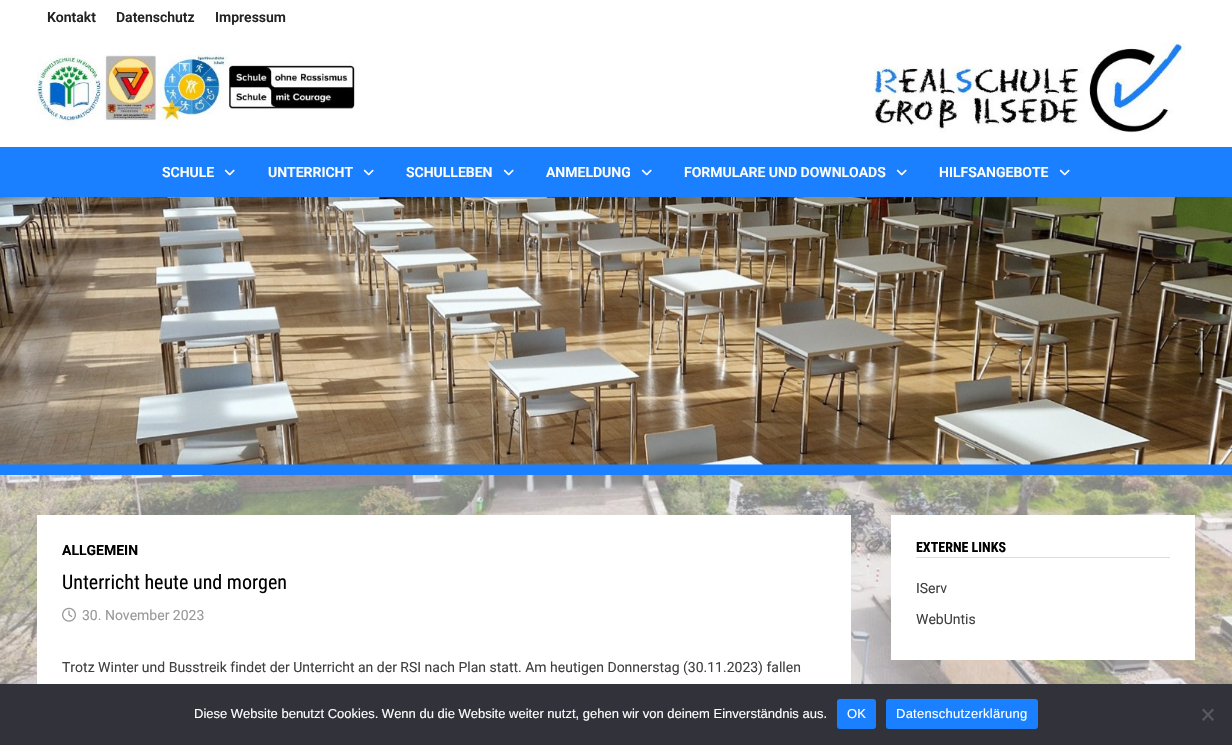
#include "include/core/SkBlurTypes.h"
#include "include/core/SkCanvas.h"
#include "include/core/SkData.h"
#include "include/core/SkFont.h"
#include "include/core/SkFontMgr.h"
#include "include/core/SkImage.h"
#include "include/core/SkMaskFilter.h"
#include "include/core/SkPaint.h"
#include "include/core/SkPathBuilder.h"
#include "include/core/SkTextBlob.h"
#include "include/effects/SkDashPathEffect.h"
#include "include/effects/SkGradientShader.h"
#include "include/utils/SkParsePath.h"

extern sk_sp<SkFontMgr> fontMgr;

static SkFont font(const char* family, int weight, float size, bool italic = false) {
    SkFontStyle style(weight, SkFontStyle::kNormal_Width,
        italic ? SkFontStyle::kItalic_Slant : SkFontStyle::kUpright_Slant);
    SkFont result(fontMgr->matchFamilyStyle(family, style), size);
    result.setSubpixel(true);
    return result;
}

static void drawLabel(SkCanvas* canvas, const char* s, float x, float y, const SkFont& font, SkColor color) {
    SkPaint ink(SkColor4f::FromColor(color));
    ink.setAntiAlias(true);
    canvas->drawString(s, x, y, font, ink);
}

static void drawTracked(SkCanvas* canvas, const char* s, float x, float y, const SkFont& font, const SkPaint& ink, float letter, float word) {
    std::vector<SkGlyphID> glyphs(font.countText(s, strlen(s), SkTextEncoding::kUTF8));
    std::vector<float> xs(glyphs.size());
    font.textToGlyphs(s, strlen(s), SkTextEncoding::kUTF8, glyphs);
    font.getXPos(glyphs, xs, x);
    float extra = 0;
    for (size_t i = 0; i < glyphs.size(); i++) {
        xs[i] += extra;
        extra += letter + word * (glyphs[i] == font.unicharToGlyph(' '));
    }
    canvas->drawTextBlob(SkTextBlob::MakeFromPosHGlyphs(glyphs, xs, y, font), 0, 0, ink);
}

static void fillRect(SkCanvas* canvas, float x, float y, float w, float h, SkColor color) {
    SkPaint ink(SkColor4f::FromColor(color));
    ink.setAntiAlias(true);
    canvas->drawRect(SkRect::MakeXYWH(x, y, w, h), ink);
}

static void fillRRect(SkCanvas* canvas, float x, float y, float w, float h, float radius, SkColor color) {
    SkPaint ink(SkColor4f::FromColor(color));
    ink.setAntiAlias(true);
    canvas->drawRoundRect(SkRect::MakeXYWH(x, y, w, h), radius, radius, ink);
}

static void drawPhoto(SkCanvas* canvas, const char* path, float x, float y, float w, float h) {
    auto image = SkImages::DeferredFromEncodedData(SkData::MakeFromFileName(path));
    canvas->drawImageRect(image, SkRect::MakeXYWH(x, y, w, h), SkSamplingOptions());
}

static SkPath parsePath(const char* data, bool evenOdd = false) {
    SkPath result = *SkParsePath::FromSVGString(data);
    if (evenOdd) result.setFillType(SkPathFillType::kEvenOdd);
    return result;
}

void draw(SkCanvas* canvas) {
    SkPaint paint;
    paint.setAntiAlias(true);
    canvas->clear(0xFFFFFFFF);
    drawPhoto(canvas, "assets/img1.png", 0, 475, 1232, 209);
    SkFont font1 = font("Roboto", 600, 14);
    drawLabel(canvas, "Kontakt", 47, 22, font1, 0xFF222222);
    drawLabel(canvas, "Datenschutz", 116, 22, font1, 0xFF222222);
    drawLabel(canvas, "Impressum", 215, 22, font1, 0xFF222222);
    drawPhoto(canvas, "assets/img2.png", 37, 43, 1148, 90);
    fillRect(canvas, 0, 147, 1232, 50, 0xFF1A80FF);
    drawLabel(canvas, "SCHULE", 162, 177, font1, 0xFFFFFFFF);
    drawPhoto(canvas, "assets/img3.png", 224, 169, 11, 7);
    drawLabel(canvas, "UNTERRICHT", 268, 177, font1, 0xFFFFFFFF);
    drawPhoto(canvas, "assets/img3.png", 363, 169, 11, 7);
    drawLabel(canvas, "SCHULLEBEN", 406, 177, font1, 0xFFFFFFFF);
    drawPhoto(canvas, "assets/img3.png", 503, 169, 11, 7);
    drawLabel(canvas, "ANMELDUNG", 546, 177, font1, 0xFFFFFFFF);
    drawPhoto(canvas, "assets/img3.png", 641, 169, 11, 7);
    drawLabel(canvas, "FORMULARE UND DOWNLOADS", 684, 177, font1, 0xFFFFFFFF);
    drawPhoto(canvas, "assets/img3.png", 896, 169, 11, 7);
    drawLabel(canvas, "HILFSANGEBOTE", 939, 177, font1, 0xFFFFFFFF);
    drawPhoto(canvas, "assets/img3.png", 1059, 169, 11, 7);
    drawPhoto(canvas, "assets/img4.png", 0, 197, 1232, 278);
    fillRect(canvas, 37, 515, 814, 169, 0xFFFFFFFF);
    SkFont font2 = font("Roboto", 700, 14);
    drawLabel(canvas, "ALLGEMEIN", 62, 555, font2, 0xFF000000);
    SkFont font3 = font("Roboto Condensed", 400, 20);
    drawLabel(canvas, "Unterricht heute und morgen", 62, 589, font3, 0xFF000000);
    drawPhoto(canvas, "assets/img5.png", 62, 607, 14, 15);
    SkFont font4 = font("Roboto", 400, 14);
    drawLabel(canvas, "30. November 2023", 82, 620, font4, 0xFF999999);
    drawLabel(canvas, "Trotz Winter und Busstreik findet der Unterricht an der RSI nach Plan statt. Am heutigen Donnerstag (30.11.2023) fallen", 62, 672, font4, 0xFF404040);
    fillRect(canvas, 891, 515, 304, 145, 0xFFFFFFFF);
    fillRect(canvas, 916, 557, 254, 1, 0xFFDDDDDD);
    SkFont font5 = font("Roboto Condensed", 700, 14);
    drawLabel(canvas, "EXTERNE LINKS", 916, 552, font5, 0xFF000000);
    drawLabel(canvas, "IServ", 916, 593, font4, 0xFF404040);
    drawLabel(canvas, "WebUntis", 916, 624, font4, 0xFF404040);
    fillRect(canvas, 0, 684, 1232, 61, 0xFF32323A);
    SkFont font6 = font("Liberation Sans", 400, 13);
    drawLabel(canvas, "Diese Website benutzt Cookies. Wenn du die Website weiter nutzt, gehen wir von deinem Einverständnis aus.", 194, 718, font6, 0xFFFFFFFF);
    fillRRect(canvas, 837, 699, 39, 30, 3, 0xFF1A80FF);
    paint.setColor(0xFFFFFFFF);
    drawTracked(canvas, "OK", 847, 718, font6, paint, 0.25f, 0);
    fillRRect(canvas, 886, 699, 152, 30, 3, 0xFF1A80FF);
    drawTracked(canvas, "Datenschutzerklärung", 896, 718, font6, paint, 0.25f, 0);
    paint.setColor(0xFF59595D);
    canvas->drawPath(parsePath("M1212.5 708.5L1214 710L1203.5 721L1202 719.5Z"), paint);
    canvas->drawPath(parsePath("M1202 710L1203.5 708.5L1214 719.5L1212.5 721Z"), paint);
}
